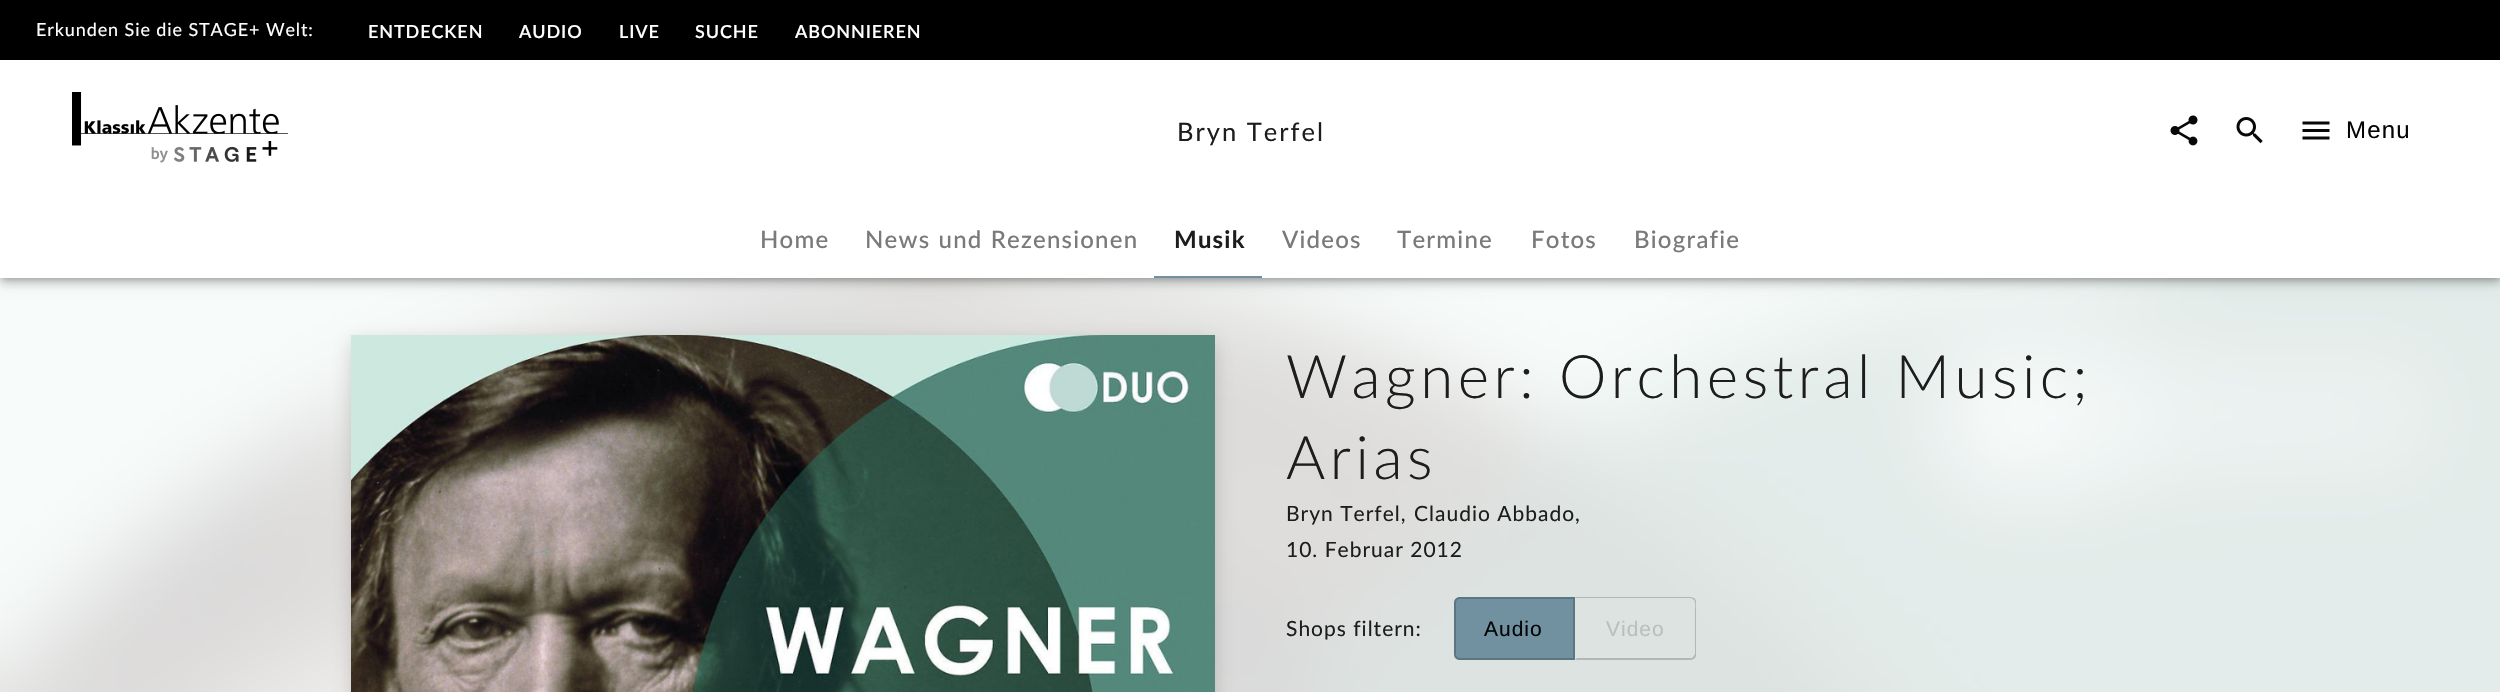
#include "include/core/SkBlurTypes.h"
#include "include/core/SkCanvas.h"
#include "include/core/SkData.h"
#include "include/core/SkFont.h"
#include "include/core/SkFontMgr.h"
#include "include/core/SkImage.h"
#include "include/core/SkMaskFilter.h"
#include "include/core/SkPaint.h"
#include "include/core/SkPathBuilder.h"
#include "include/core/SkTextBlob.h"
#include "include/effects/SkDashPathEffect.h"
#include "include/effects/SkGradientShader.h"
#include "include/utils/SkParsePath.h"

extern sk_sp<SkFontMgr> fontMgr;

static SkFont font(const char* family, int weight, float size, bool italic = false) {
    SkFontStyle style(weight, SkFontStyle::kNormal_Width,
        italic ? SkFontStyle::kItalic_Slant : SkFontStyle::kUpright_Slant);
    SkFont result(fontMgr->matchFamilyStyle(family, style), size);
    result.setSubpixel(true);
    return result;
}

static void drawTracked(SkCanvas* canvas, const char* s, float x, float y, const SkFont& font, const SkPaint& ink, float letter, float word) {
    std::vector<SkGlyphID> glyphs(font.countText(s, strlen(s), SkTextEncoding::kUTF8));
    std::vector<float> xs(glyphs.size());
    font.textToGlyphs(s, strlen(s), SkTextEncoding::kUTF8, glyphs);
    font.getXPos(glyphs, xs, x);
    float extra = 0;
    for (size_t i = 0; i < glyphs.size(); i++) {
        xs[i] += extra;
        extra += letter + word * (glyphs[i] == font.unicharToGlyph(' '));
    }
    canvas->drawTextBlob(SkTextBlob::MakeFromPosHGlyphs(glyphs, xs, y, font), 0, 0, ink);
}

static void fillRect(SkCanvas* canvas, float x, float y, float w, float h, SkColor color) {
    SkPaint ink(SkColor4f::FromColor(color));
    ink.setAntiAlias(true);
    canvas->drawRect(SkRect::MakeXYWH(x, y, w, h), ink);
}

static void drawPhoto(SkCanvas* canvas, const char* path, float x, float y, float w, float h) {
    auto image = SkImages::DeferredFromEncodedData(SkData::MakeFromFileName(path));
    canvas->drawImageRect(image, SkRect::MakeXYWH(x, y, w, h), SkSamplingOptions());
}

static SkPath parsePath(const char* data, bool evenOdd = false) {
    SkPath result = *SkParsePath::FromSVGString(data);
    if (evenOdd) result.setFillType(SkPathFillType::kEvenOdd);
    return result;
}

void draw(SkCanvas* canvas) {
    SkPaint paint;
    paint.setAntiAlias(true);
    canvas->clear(0xFFFFFFFF);
    fillRect(canvas, 0, 0, 2500, 60, 0xFF000000);
    SkFont font1 = font("Lato", 400, 18);
    paint.setColor(0xFFFFFFFF);
    drawTracked(canvas, "Erkunden Sie die STAGE+ Welt:", 36, 36, font1, paint, 0.9f, 0);
    SkFont font2 = font("Lato", 600, 18);
    drawTracked(canvas, "ENTDECKEN", 368, 38, font2, paint, 0.9f, 0);
    drawTracked(canvas, "AUDIO", 519, 38, font2, paint, 0.9f, 0);
    drawTracked(canvas, "LIVE", 619, 38, font2, paint, 0.9f, 0);
    drawTracked(canvas, "SUCHE", 695, 38, font2, paint, 0.9f, 0);
    drawTracked(canvas, "ABONNIEREN", 795, 38, font2, paint, 0.9f, 0);
    drawPhoto(canvas, "assets/img5.png", 0, 278, 2500, 414);
    paint.setColor(0x1F000000);
    paint.setMaskFilter(SkMaskFilter::MakeBlur(kNormal_SkBlurStyle, 7.5f));
    canvas->drawRect(SkRect::MakeXYWH(0, 62, 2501, 217), paint);
    paint.setMaskFilter(nullptr);
    paint.setColor(0x24000000);
    paint.setMaskFilter(SkMaskFilter::MakeBlur(kNormal_SkBlurStyle, 4));
    canvas->drawRect(SkRect::MakeXYWH(0, 66, 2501, 218), paint);
    paint.setMaskFilter(nullptr);
    paint.setColor(0x33000000);
    paint.setMaskFilter(SkMaskFilter::MakeBlur(kNormal_SkBlurStyle, 3));
    canvas->drawRect(SkRect::MakeXYWH(2, 65, 2497, 214), paint);
    paint.setMaskFilter(nullptr);
    fillRect(canvas, 0, 60, 2500, 218, 0xFFFFFFFF);
    drawPhoto(canvas, "assets/img1.png", 72, 92, 216, 71);
    SkFont font3 = font("Lato", 400, 25.5f);
    paint.setColor(0xFF1D1D1D);
    drawTracked(canvas, "Bryn Terfel", 1177, 141, font3, paint, 2, 0);
    drawPhoto(canvas, "assets/img2.png", 2170, 115, 28, 31);
    drawPhoto(canvas, "assets/img3.png", 2236, 117, 27, 27);
    drawPhoto(canvas, "assets/img4.png", 2302, 121, 28, 19);
    SkFont font4 = font("Liberation Sans", 400, 24);
    paint.setColor(0xFF030405);
    drawTracked(canvas, "Menu", 2346, 138, font4, paint, 1.2f, 0);
    SkFont font5 = font("Lato", 500, 24);
    paint.setColor(0xFF7A7A7A);
    drawTracked(canvas, "Home", 760, 248, font5, paint, 1.2f, 0);
    drawTracked(canvas, "News und Rezensionen", 865, 248, font5, paint, 1.2f, 1);
    SkFont font6 = font("Lato", 700, 24);
    paint.setColor(0xFF1D1D1D);
    drawTracked(canvas, "Musik", 1174, 248, font6, paint, 1.2f, 0);
    paint.setColor(0xFF7A7A7A);
    drawTracked(canvas, "Videos", 1282, 248, font5, paint, 1.2f, 0);
    drawTracked(canvas, "Termine", 1397, 248, font5, paint, 1.2f, 0);
    drawTracked(canvas, "Fotos", 1531, 248, font5, paint, 1.2f, 0);
    drawTracked(canvas, "Biografie", 1634, 248, font5, paint, 1.2f, 0);
    fillRect(canvas, 1154, 276, 108, 2, 0xFF7190A0);
    paint.setColor(0x3B434343);
    paint.setMaskFilter(SkMaskFilter::MakeBlur(kNormal_SkBlurStyle, 9));
    canvas->drawRect(SkRect::MakeXYWH(351, 341, 864, 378), paint);
    paint.setMaskFilter(nullptr);
    drawPhoto(canvas, "assets/img6.png", 351, 335, 864, 357);
    SkFont font7 = font("Lato", 300, 60);
    paint.setColor(0xFF1D1D1D);
    drawTracked(canvas, "Wagner: Orchestral Music;", 1286, 398, font7, paint, 4.5f, 0);
    drawTracked(canvas, "Arias", 1286, 479, font7, paint, 4.5f, 0);
    SkFont font8 = font("Lato", 400, 21);
    drawTracked(canvas, "Bryn Terfel,", 1286, 521, font8, paint, 1, 0);
    drawTracked(canvas, "Claudio Abbado,", 1414, 521, font8, paint, 1, 0);
    drawTracked(canvas, "10. Februar 2012", 1286, 557, font8, paint, 1, 0);
    drawTracked(canvas, "Shops filtern:", 1286, 636, font8, paint, 1, 0);
    paint.setColor(0xFF7190A0);
    canvas->drawPath(parsePath("M1460 597H1575V660H1460C1456.5 660 1454 657.5 1454 654V603C1454 599.5 1456.5 597 1460 597Z"), paint);
    paint.setStroke(true);
    paint.setStrokeWidth(2);
    paint.setColor(0x3300080D);
    canvas->drawPath(parsePath("M1460 598H1574V659H1460C1457 659 1455 657 1455 654V603C1455 600 1457 598 1460 598Z"), paint);
    SkFont font9 = font("Liberation Sans", 400, 21);
    paint.setStroke(false);
    paint.setColor(0xFF030405);
    drawTracked(canvas, "Audio", 1484, 636, font9, paint, 1, 0);
    paint.setColor(0xFFB1B7B7);
    canvas->drawPath(parsePath("M1575 597L1576 598H1691L1694 600L1695 599C1694 598 1692 597 1690 597Z"), paint);
    paint.setColor(0x3300080D);
    canvas->drawPath(parsePath("M1695 599C1696 600 1696 602 1696 603V654C1696 655 1696 657 1695 658L1693 657L1695 654V612C1695 609 1696 603 1694 600Z"), paint);
    canvas->drawPath(parsePath("M1690 660C1692 660 1694 659 1695 658L1693 657C1693 658 1691 658 1690 658H1577L1575 660Z"), paint);
    paint.setColor(0xFFBABEBD);
    drawTracked(canvas, "Video", 1606, 636, font9, paint, 1, 0);
}
